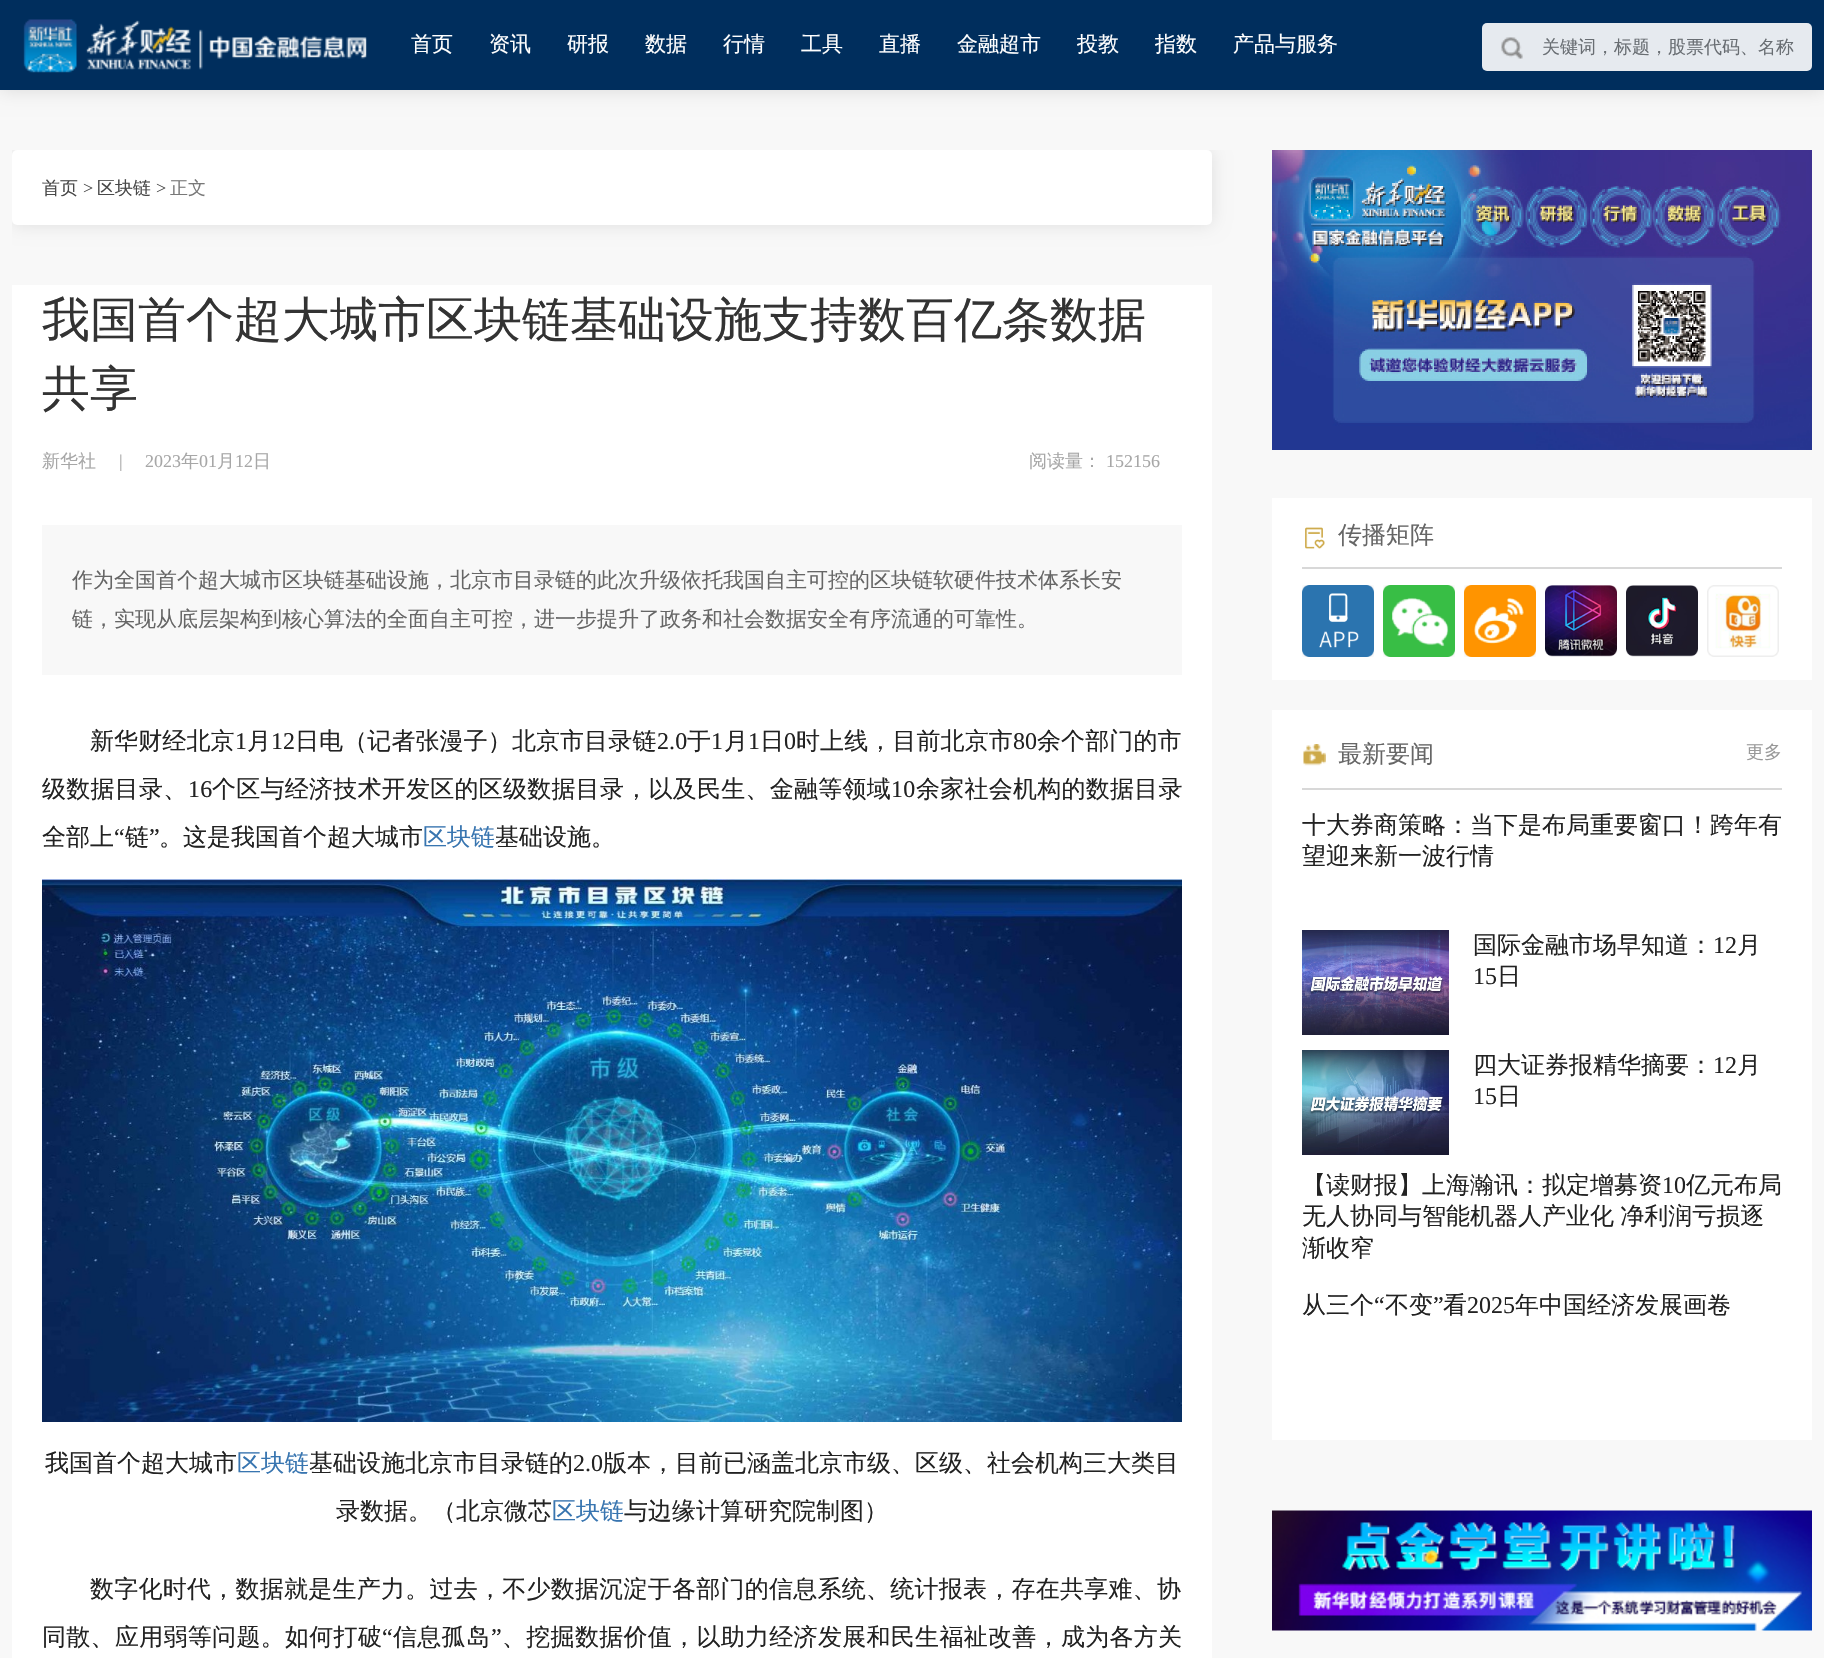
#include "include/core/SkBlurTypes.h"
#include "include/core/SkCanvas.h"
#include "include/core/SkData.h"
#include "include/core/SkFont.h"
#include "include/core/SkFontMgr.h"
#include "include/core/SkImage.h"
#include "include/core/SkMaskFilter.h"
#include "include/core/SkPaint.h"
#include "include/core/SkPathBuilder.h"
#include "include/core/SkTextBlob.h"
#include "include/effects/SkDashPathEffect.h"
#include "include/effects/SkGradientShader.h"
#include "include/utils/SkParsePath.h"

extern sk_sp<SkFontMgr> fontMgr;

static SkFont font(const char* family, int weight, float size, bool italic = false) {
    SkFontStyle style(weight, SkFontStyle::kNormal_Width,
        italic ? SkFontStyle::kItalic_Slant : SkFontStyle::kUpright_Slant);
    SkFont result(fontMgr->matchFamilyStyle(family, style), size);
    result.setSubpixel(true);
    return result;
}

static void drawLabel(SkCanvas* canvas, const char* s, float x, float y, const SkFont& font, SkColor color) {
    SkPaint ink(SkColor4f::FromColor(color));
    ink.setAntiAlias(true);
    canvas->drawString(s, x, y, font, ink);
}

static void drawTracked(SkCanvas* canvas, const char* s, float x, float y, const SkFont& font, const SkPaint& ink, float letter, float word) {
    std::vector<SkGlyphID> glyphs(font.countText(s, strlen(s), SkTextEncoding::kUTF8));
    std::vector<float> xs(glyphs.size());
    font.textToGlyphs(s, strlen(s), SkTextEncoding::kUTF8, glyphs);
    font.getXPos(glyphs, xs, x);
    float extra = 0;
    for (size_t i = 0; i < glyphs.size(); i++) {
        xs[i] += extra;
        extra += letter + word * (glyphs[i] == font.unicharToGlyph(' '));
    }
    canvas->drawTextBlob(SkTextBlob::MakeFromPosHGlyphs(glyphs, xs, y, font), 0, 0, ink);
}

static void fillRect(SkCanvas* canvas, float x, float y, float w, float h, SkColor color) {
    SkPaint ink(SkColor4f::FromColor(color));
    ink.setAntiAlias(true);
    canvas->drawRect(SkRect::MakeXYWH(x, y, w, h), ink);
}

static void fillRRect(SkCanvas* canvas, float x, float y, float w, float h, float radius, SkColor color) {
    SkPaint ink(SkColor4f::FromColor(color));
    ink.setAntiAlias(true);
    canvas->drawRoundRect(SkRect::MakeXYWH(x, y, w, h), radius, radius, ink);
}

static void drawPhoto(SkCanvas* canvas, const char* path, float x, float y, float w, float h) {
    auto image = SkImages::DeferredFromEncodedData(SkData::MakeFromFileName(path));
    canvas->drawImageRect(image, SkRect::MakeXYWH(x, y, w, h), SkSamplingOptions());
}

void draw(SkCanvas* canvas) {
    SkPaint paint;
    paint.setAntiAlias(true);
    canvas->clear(0xFFF8F8F8);
    paint.setColor(0x1F000000);
    paint.setMaskFilter(SkMaskFilter::MakeBlur(kNormal_SkBlurStyle, 9));
    canvas->drawRect(SkRect::MakeXYWH(0, 0, 1824, 90), paint);
    paint.setMaskFilter(nullptr);
    fillRect(canvas, 0, 0, 1824, 90, 0xFF002E5D);
    drawPhoto(canvas, "assets/img1.png", 23, 19, 344, 54);
    SkFont font1 = font("WenQuanYi Zen Hei", 500, 21);
    drawLabel(canvas, "首页", 411, 51, font1, 0xFFFFFFFF);
    drawLabel(canvas, "资讯", 489, 51, font1, 0xFFFFFFFF);
    drawLabel(canvas, "研报", 567, 51, font1, 0xFFFFFFFF);
    drawLabel(canvas, "数据", 645, 51, font1, 0xFFFFFFFF);
    drawLabel(canvas, "行情", 723, 51, font1, 0xFFFFFFFF);
    drawLabel(canvas, "工具", 801, 51, font1, 0xFFFFFFFF);
    drawLabel(canvas, "直播", 879, 51, font1, 0xFFFFFFFF);
    drawLabel(canvas, "金融超市", 957, 51, font1, 0xFFFFFFFF);
    drawLabel(canvas, "投教", 1077, 51, font1, 0xFFFFFFFF);
    drawLabel(canvas, "指数", 1155, 51, font1, 0xFFFFFFFF);
    drawLabel(canvas, "产品与服务", 1233, 51, font1, 0xFFFFFFFF);
    fillRRect(canvas, 1482, 23, 330, 48, 5, 0xFFE6EAEF);
    drawPhoto(canvas, "assets/img2.png", 1501, 37, 22, 22);
    SkFont font2 = font("WenQuanYi Zen Hei", 500, 18);
    drawLabel(canvas, "关键词，标题，股票代码、名称", 1542, 53, font2, 0xFF696E73);
    canvas->save();
    canvas->clipRect(SkRect::MakeXYWH(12, 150, 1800, 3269));
    paint.setColor(0x1A000000);
    paint.setMaskFilter(SkMaskFilter::MakeBlur(kNormal_SkBlurStyle, 9));
    canvas->drawRoundRect(SkRect::MakeXYWH(12, 150, 1200, 75), 5, 5, paint);
    paint.setMaskFilter(nullptr);
    canvas->restore();
    fillRRect(canvas, 12, 150, 1200, 75, 5, 0xFFFFFFFF);
    drawLabel(canvas, "首页", 42, 194, font2, 0xFF484848);
    SkFont font3 = font("Liberation Serif", 400, 18);
    drawLabel(canvas, ">", 83, 194, font3, 0xFF484848);
    drawLabel(canvas, "区块链", 97, 194, font2, 0xFF484848);
    drawLabel(canvas, ">", 156, 194, font3, 0xFF484848);
    drawLabel(canvas, "正文", 170, 194, font2, 0xFF787878);
    fillRect(canvas, 12, 285, 1200, 1373, 0xFFFFFFFF);
    SkFont font4 = font("WenQuanYi Zen Hei", 500, 48);
    drawLabel(canvas, "我国首个超大城市区块链基础设施支持数百亿条数据", 42, 336, font4, 0xFF333333);
    drawLabel(canvas, "共享", 42, 405, font4, 0xFF333333);
    drawLabel(canvas, "新华社", 42, 467, font2, 0xFFA7A7A7);
    drawLabel(canvas, "|", 119, 467, font3, 0xFFA7A7A7);
    drawLabel(canvas, "2023", 145, 467, font3, 0xFFA7A7A7);
    drawLabel(canvas, "年", 181, 467, font2, 0xFFA7A7A7);
    drawLabel(canvas, "01", 199, 467, font3, 0xFFA7A7A7);
    drawLabel(canvas, "月", 217, 467, font2, 0xFFA7A7A7);
    drawLabel(canvas, "12", 235, 467, font3, 0xFFA7A7A7);
    drawLabel(canvas, "日", 253, 467, font2, 0xFFA7A7A7);
    drawLabel(canvas, "阅读量：", 1029, 467, font2, 0xFFA7A7A7);
    drawLabel(canvas, "152156", 1106, 467, font3, 0xFFA7A7A7);
    fillRect(canvas, 42, 525, 1140, 150, 0xFFF8F8F8);
    drawLabel(canvas, "作为全国首个超大城市区块链基础设施，北京市目录链的此次升级依托我国自主可控的区块链软硬件技术体系长安", 72, 587, font1, 0xFF666666);
    drawLabel(canvas, "链，实现从底层架构到核心算法的全面自主可控，进一步提升了政务和社会数据安全有序流通的可靠性。", 72, 626, font1, 0xFF666666);
    SkFont font5 = font("WenQuanYi Zen Hei", 500, 24);
    paint.setColor(0xFF222222);
    drawTracked(canvas, "新华财经北京", 90, 749, font5, paint, 0.1f, 0);
    SkFont font6 = font("Liberation Serif", 400, 24);
    drawTracked(canvas, "1", 235, 749, font6, paint, 0.1f, 0);
    drawTracked(canvas, "月", 247, 749, font5, paint, 0.1f, 0);
    drawTracked(canvas, "12", 271, 749, font6, paint, 0.1f, 0);
    drawTracked(canvas, "日电（记者张漫子）北京市目录链", 295, 749, font5, paint, 0.1f, 0);
    drawTracked(canvas, "2.0", 657, 749, font6, paint, 0.1f, 0);
    drawTracked(canvas, "于", 687, 749, font5, paint, 0.1f, 0);
    drawTracked(canvas, "1", 711, 749, font6, paint, 0.1f, 0);
    drawTracked(canvas, "月", 724, 749, font5, paint, 0.1f, 0);
    drawTracked(canvas, "1", 748, 749, font6, paint, 0.1f, 0);
    drawTracked(canvas, "日", 760, 749, font5, paint, 0.1f, 0);
    drawTracked(canvas, "0", 784, 749, font6, paint, 0.1f, 0);
    drawTracked(canvas, "时上线，目前北京市", 796, 749, font5, paint, 0.1f, 0);
    drawTracked(canvas, "80", 1013, 749, font6, paint, 0.1f, 0);
    drawTracked(canvas, "余个部门的市", 1037, 749, font5, paint, 0.1f, 0);
    drawTracked(canvas, "级数据目录、", 42, 797, font5, paint, 0.25f, 0);
    drawTracked(canvas, "16", 188, 797, font6, paint, 0.25f, 0);
    drawTracked(canvas, "个区与经济技术开发区的区级数据目录，以及民生、金融等领域", 212, 797, font5, paint, 0.25f, 0);
    drawTracked(canvas, "10", 891, 797, font6, paint, 0.25f, 0);
    drawTracked(canvas, "余家社会机构的数据目录", 916, 797, font5, paint, 0.25f, 0);
    drawLabel(canvas, "全部上", 42, 845, font5, 0xFF222222);
    drawLabel(canvas, "“", 114, 845, font6, 0xFF222222);
    drawLabel(canvas, "链", 125, 845, font5, 0xFF222222);
    drawLabel(canvas, "”", 149, 845, font6, 0xFF222222);
    drawLabel(canvas, "。这是我国首个超大城市", 159, 845, font5, 0xFF222222);
    drawLabel(canvas, "区块链", 423, 845, font5, 0xFF3875B0);
    drawLabel(canvas, "基础设施。", 495, 845, font5, 0xFF222222);
    drawPhoto(canvas, "assets/img3.png", 42, 879, 1140, 543);
    drawLabel(canvas, "我国首个超大城市", 45, 1471, font5, 0xFF222222);
    drawLabel(canvas, "区块链", 237, 1471, font5, 0xFF3875B0);
    drawLabel(canvas, "基础设施北京市目录链的", 309, 1471, font5, 0xFF222222);
    drawLabel(canvas, "2.0", 573, 1471, font6, 0xFF222222);
    drawLabel(canvas, "版本，目前已涵盖北京市级、区级、社会机构三大类目", 603, 1471, font5, 0xFF222222);
    drawLabel(canvas, "录数据。（北京微芯", 336, 1519, font5, 0xFF222222);
    drawLabel(canvas, "区块链", 552, 1519, font5, 0xFF3875B0);
    drawLabel(canvas, "与边缘计算研究院制图）", 624, 1519, font5, 0xFF222222);
    drawTracked(canvas, "数字化时代，数据就是生产力。过去，不少数据沉淀于各部门的信息系统、统计报表，存在共享难、协", 90, 1597, font5, paint, 0.25f, 0);
    drawTracked(canvas, "同散、应用弱等问题。如何打破", 42, 1645, font5, paint, 0.3f, 0);
    drawTracked(canvas, "“", 382, 1645, font6, paint, 0.3f, 0);
    drawTracked(canvas, "信息孤岛", 393, 1645, font5, paint, 0.3f, 0);
    drawTracked(canvas, "”", 491, 1645, font6, paint, 0.3f, 0);
    drawTracked(canvas, "、挖掘数据价值，以助力经济发展和民生福祉改善，成为各方关", 502, 1645, font5, paint, 0.3f, 0);
    drawPhoto(canvas, "assets/img4.png", 1272, 150, 540, 300);
    fillRect(canvas, 1272, 498, 540, 182, 0xFFFFFFFF);
    fillRect(canvas, 1302, 567, 480, 2, 0xFFD8D8D8);
    drawPhoto(canvas, "assets/img5.png", 1305, 527, 20, 22);
    drawLabel(canvas, "传播矩阵", 1338, 543, font5, 0xFF666666);
    drawPhoto(canvas, "assets/img6.png", 1302, 585, 72, 72);
    drawPhoto(canvas, "assets/img7.png", 1383, 585, 72, 72);
    drawPhoto(canvas, "assets/img8.png", 1464, 585, 72, 72);
    drawPhoto(canvas, "assets/img9.png", 1545, 585, 72, 72);
    drawPhoto(canvas, "assets/img10.png", 1626, 585, 72, 72);
    drawPhoto(canvas, "assets/img11.png", 1707, 585, 72, 72);
    fillRect(canvas, 1272, 710, 540, 730, 0xFFFFFFFF);
    drawPhoto(canvas, "assets/img12.png", 1303, 744, 23, 22);
    drawLabel(canvas, "最新要闻", 1338, 762, font5, 0xFF666666);
    drawLabel(canvas, "更多", 1746, 758, font2, 0xFF999999);
    fillRect(canvas, 1302, 788, 480, 2, 0xFFD8D8D8);
    drawLabel(canvas, "十大券商策略：当下是布局重要窗口！跨年有", 1302, 833, font5, 0xFF222222);
    drawLabel(canvas, "望迎来新一波行情", 1302, 864, font5, 0xFF222222);
    drawPhoto(canvas, "assets/img13.png", 1302, 930, 147, 105);
    drawLabel(canvas, "国际金融市场早知道：", 1473, 953, font5, 0xFF222222);
    drawLabel(canvas, "12", 1713, 953, font6, 0xFF222222);
    drawLabel(canvas, "月", 1737, 953, font5, 0xFF222222);
    drawLabel(canvas, "15", 1473, 984, font6, 0xFF222222);
    drawLabel(canvas, "日", 1497, 984, font5, 0xFF222222);
    drawPhoto(canvas, "assets/img14.png", 1302, 1050, 147, 105);
    drawLabel(canvas, "四大证券报精华摘要：", 1473, 1073, font5, 0xFF222222);
    drawLabel(canvas, "12", 1713, 1073, font6, 0xFF222222);
    drawLabel(canvas, "月", 1737, 1073, font5, 0xFF222222);
    drawLabel(canvas, "15", 1473, 1104, font6, 0xFF222222);
    drawLabel(canvas, "日", 1497, 1104, font5, 0xFF222222);
    drawLabel(canvas, "【读财报】上海瀚讯：拟定增募资", 1302, 1193, font5, 0xFF222222);
    drawLabel(canvas, "10", 1662, 1193, font6, 0xFF222222);
    drawLabel(canvas, "亿元布局", 1686, 1193, font5, 0xFF222222);
    drawTracked(canvas, "无人协同与智能机器人产业化 净利润亏损逐", 1302, 1224, font5, paint, 0, -1);
    drawLabel(canvas, "渐收窄", 1302, 1256, font5, 0xFF222222);
    drawLabel(canvas, "从三个", 1302, 1313, font5, 0xFF222222);
    drawLabel(canvas, "“", 1374, 1313, font6, 0xFF222222);
    drawLabel(canvas, "不变", 1385, 1313, font5, 0xFF222222);
    drawLabel(canvas, "”", 1433, 1313, font6, 0xFF222222);
    drawLabel(canvas, "看", 1443, 1313, font5, 0xFF222222);
    drawLabel(canvas, "2025", 1467, 1313, font6, 0xFF222222);
    drawLabel(canvas, "年中国经济发展画卷", 1515, 1313, font5, 0xFF222222);
    drawPhoto(canvas, "assets/img15.png", 1272, 1510, 540, 121);
}
